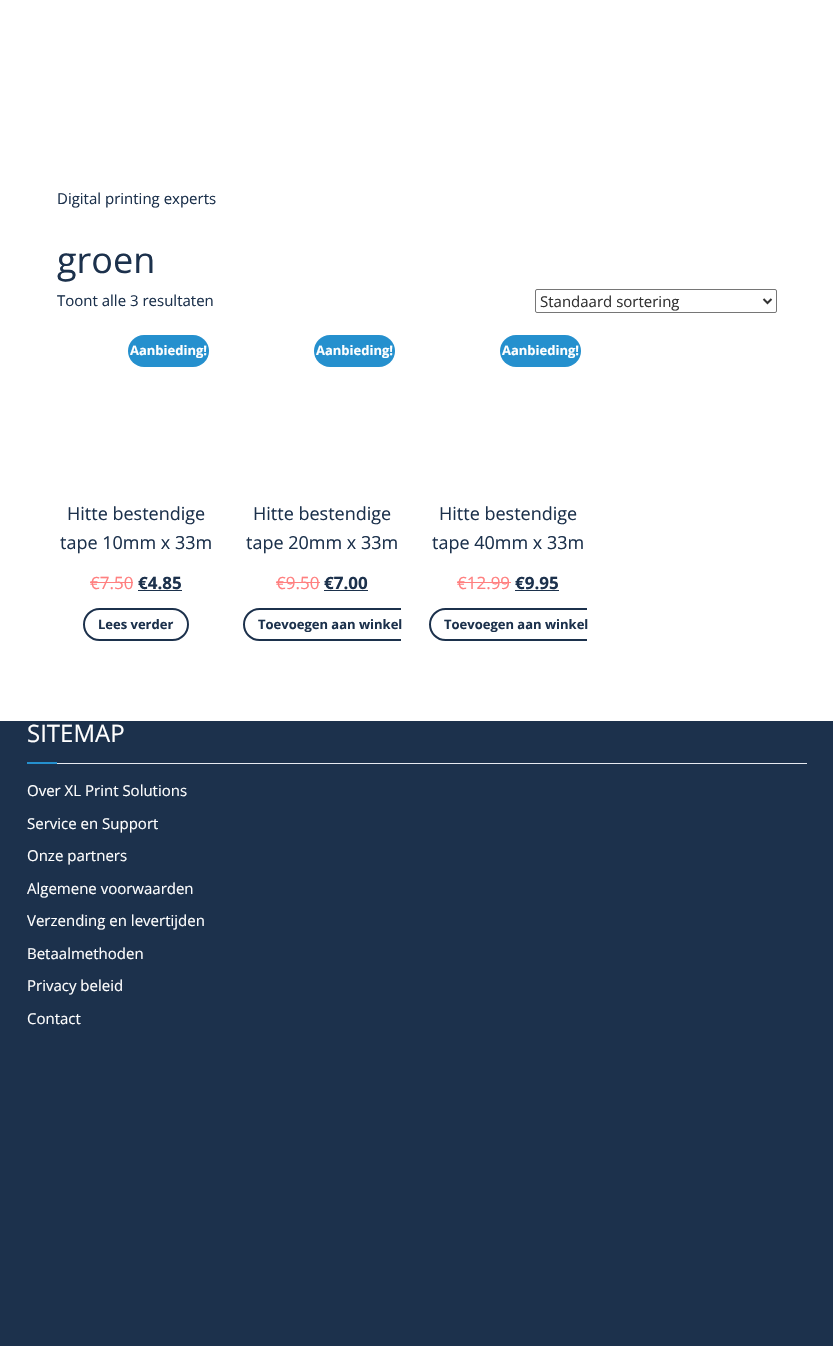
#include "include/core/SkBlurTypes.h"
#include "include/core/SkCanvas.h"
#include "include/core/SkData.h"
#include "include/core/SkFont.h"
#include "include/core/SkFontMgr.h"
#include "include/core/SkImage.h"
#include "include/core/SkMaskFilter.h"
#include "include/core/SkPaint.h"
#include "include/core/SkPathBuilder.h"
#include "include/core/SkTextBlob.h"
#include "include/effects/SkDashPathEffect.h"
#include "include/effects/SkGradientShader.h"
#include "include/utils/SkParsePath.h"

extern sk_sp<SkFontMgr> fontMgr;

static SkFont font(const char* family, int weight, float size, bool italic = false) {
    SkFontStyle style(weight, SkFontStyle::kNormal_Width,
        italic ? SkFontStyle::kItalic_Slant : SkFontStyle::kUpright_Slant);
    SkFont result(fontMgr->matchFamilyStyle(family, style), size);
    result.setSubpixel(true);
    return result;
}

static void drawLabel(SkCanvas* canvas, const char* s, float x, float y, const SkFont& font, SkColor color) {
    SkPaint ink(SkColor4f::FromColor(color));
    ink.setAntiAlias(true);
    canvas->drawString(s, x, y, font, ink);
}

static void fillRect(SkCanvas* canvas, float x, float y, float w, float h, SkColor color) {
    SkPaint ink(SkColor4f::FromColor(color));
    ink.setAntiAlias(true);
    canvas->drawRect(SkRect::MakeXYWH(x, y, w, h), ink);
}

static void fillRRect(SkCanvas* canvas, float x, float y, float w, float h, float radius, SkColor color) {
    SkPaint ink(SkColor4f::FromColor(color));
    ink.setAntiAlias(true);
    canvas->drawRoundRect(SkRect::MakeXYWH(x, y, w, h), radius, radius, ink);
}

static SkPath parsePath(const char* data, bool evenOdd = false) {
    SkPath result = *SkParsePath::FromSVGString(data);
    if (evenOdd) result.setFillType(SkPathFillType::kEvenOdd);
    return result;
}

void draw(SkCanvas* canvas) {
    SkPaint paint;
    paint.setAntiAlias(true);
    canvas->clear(0xFFFFFFFF);
    SkFont font1 = font("Open Sans", 400, 15);
    drawLabel(canvas, "Digital printing experts", 57, 204, font1, 0xFF1C314C);
    SkFont font2 = font("Open Sans", 400, 36);
    drawLabel(canvas, "groen", 57, 273, font2, 0xFF1C314C);
    drawLabel(canvas, "Toont alle 3 resultaten", 57, 306, font1, 0xFF1C314C);
    paint.setStroke(true);
    paint.setStrokeWidth(1);
    paint.setColor(0xFF767676);
    canvas->drawRoundRect(SkRect::MakeXYWH(535.5f, 289.5f, 241, 23), 1.5f, 1.5f, paint);
    paint.setStrokeWidth(2);
    paint.setColor(0xFF333333);
    canvas->drawPath(parsePath("M763.5 299L767.5 303L771.5 299"), paint);
    drawLabel(canvas, "Standaard sortering", 540, 307, font1, 0xFF333333);
    fillRRect(canvas, 128, 335, 81, 32, 16, 0xFF2590CE);
    SkFont font3 = font("Open Sans", 700, 13);
    drawLabel(canvas, "Aanbieding!", 130, 355, font3, 0xFFFFFFFF);
    SkFont font4 = font("Open Sans", 400, 18);
    drawLabel(canvas, "Hitte bestendige", 67, 520, font4, 0xFF1C314C);
    drawLabel(canvas, "tape 10mm x 33m", 60, 549, font4, 0xFF1C314C);
    SkFont font5 = font("Open Sans", 400, 17);
    drawLabel(canvas, "€7.50", 90, 589, font5, 0xFFFF8080);
    fillRect(canvas, 90, 582, 43, 1, 0xFFFF8080);
    SkFont font6 = font("Open Sans", 700, 17);
    drawLabel(canvas, "€4.85", 138, 589, font6, 0xFF1C314C);
    fillRect(canvas, 138, 590, 44, 1, 0xFF1C314C);
    paint.setColor(0xFF1C314C);
    canvas->drawRoundRect(SkRect::MakeXYWH(84, 609, 104, 31), 15.5f, 15.5f, paint);
    drawLabel(canvas, "Lees verder", 98, 629, font3, 0xFF1C314C);
    fillRRect(canvas, 314, 335, 81, 32, 16, 0xFF2590CE);
    drawLabel(canvas, "Aanbieding!", 316, 355, font3, 0xFFFFFFFF);
    drawLabel(canvas, "Hitte bestendige", 253, 520, font4, 0xFF1C314C);
    drawLabel(canvas, "tape 20mm x 33m", 246, 549, font4, 0xFF1C314C);
    drawLabel(canvas, "€9.50", 276, 589, font5, 0xFFFF8080);
    fillRect(canvas, 276, 582, 44, 1, 0xFFFF8080);
    drawLabel(canvas, "€7.00", 324, 589, font6, 0xFF1C314C);
    fillRect(canvas, 324, 590, 44, 1, 0xFF1C314C);
    canvas->save();
    canvas->clipRect(SkRect::MakeXYWH(243, 328, 158, 333));
    canvas->drawRoundRect(SkRect::MakeXYWH(244, 609, 214, 31), 15.5f, 15.5f, paint);
    canvas->restore();
    drawLabel(canvas, "Toevoegen aan winkel", 258, 629, font3, 0xFF1C314C);
    fillRRect(canvas, 500, 335, 81, 32, 16, 0xFF2590CE);
    drawLabel(canvas, "Aanbieding!", 502, 355, font3, 0xFFFFFFFF);
    drawLabel(canvas, "Hitte bestendige", 439, 520, font4, 0xFF1C314C);
    drawLabel(canvas, "tape 40mm x 33m", 432, 549, font4, 0xFF1C314C);
    drawLabel(canvas, "€12.99", 457, 589, font5, 0xFFFF8080);
    fillRect(canvas, 457, 582, 54, 1, 0xFFFF8080);
    drawLabel(canvas, "€9.95", 515, 589, font6, 0xFF1C314C);
    fillRect(canvas, 515, 590, 44, 1, 0xFF1C314C);
    canvas->save();
    canvas->clipRect(SkRect::MakeXYWH(429, 328, 158, 333));
    canvas->drawRoundRect(SkRect::MakeXYWH(430, 609, 215, 31), 15.5f, 15.5f, paint);
    canvas->restore();
    drawLabel(canvas, "Toevoegen aan winkel", 444, 629, font3, 0xFF1C314C);
    fillRect(canvas, 0, 721, 833, 625, 0xFF1C314C);
    fillRect(canvas, 57, 763, 750, 1, 0xFFE7EAF1);
    SkFont font7 = font("Open Sans", 400, 24);
    drawLabel(canvas, "SITEMAP", 27, 742, font7, 0xFFFFFFFF);
    fillRect(canvas, 27, 762, 30, 2, 0xFF2590CE);
    drawLabel(canvas, "Over XL Print Solutions", 27, 796, font1, 0xFFFFFFFF);
    drawLabel(canvas, "Service en Support", 27, 829, font1, 0xFFFFFFFF);
    drawLabel(canvas, "Onze partners", 27, 861, font1, 0xFFFFFFFF);
    drawLabel(canvas, "Algemene voorwaarden", 27, 894, font1, 0xFFFFFFFF);
    drawLabel(canvas, "Verzending en levertijden", 27, 926, font1, 0xFFFFFFFF);
    drawLabel(canvas, "Betaalmethoden", 27, 959, font1, 0xFFFFFFFF);
    drawLabel(canvas, "Privacy beleid", 27, 991, font1, 0xFFFFFFFF);
    drawLabel(canvas, "Contact", 27, 1024, font1, 0xFFFFFFFF);
}
